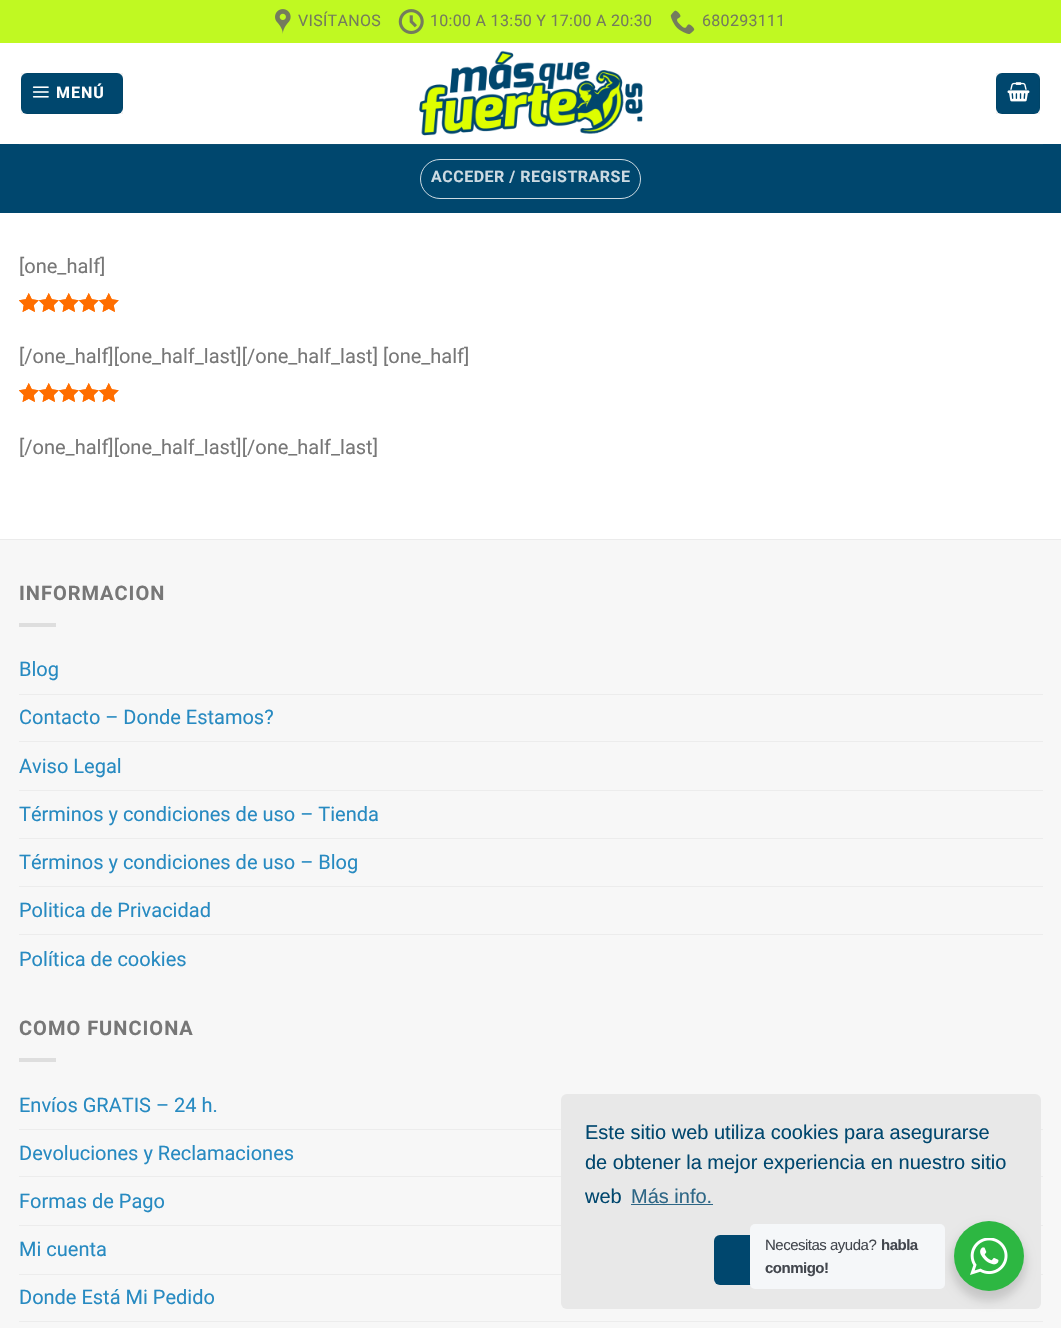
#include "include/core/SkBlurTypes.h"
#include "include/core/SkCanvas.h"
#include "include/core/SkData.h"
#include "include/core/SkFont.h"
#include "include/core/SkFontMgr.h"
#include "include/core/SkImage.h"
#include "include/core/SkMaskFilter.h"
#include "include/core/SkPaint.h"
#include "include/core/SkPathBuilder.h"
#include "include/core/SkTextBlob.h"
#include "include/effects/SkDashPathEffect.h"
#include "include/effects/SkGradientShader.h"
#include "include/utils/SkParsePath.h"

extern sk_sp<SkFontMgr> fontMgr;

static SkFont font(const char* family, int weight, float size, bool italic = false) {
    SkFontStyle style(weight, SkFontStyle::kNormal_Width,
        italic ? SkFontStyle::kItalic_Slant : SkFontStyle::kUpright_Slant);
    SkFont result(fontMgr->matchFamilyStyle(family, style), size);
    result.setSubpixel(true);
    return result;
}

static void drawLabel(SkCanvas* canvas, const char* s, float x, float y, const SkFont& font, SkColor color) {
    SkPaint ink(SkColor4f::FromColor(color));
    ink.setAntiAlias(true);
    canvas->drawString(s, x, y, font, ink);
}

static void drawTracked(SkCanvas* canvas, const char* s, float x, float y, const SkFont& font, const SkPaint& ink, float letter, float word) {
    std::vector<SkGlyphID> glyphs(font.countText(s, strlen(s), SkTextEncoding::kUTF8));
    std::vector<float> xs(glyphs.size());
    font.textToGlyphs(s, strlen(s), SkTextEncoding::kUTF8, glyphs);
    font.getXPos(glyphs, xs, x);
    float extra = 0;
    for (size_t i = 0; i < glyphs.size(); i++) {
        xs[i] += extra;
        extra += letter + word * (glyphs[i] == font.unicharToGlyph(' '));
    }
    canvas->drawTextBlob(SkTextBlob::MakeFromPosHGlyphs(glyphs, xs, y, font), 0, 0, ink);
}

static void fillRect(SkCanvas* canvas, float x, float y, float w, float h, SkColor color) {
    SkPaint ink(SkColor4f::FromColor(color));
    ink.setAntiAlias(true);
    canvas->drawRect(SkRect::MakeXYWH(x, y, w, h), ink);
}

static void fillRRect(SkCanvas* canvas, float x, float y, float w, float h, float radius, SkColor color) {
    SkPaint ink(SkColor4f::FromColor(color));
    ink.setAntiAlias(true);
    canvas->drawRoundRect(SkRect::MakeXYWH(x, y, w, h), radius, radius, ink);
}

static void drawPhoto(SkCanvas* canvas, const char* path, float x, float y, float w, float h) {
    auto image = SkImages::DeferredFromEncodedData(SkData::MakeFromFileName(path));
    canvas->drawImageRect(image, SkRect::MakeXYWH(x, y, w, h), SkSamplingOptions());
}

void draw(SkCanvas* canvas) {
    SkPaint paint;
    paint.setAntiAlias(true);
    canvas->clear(0xFFFFFFFF);
    fillRect(canvas, 0, 0, 1061, 43, 0xFFC0F922);
    drawPhoto(canvas, "assets/img1.png", 275, 9, 16, 25);
    SkFont font1 = font("Roboto", 400, 16);
    paint.setColor(0xFF747C5C);
    drawTracked(canvas, "VISÍTANOS", 298, 26, font1, paint, 0.3f, 0);
    drawPhoto(canvas, "assets/img2.png", 398, 9, 26, 26);
    drawTracked(canvas, "10:00 A 13:50 Y 17:00 A 20:30", 430, 26, font1, paint, 0.3f, 0);
    drawPhoto(canvas, "assets/img3.png", 670, 10, 25, 24);
    drawTracked(canvas, "680293111", 702, 26, font1, paint, 0.3f, 0);
    fillRRect(canvas, 21, 73, 102, 41, 6, 0xFF00476E);
    paint.setStroke(true);
    paint.setStrokeWidth(1);
    paint.setColor(0x0D000000);
    canvas->drawRect(SkRect::MakeXYWH(21.5f, 73.5f, 101, 40), paint);
    drawPhoto(canvas, "assets/img4.png", 32, 86, 17, 12);
    SkFont font2 = font("Roboto", 700, 16);
    paint.setStroke(false);
    paint.setColor(0xFFFFFFFF);
    drawTracked(canvas, "MENÚ", 56, 98, font2, paint, 1, 0);
    drawPhoto(canvas, "assets/img5.png", 419, 50, 224, 86);
    fillRRect(canvas, 996, 73, 44, 41, 6, 0xFF00476E);
    paint.setStroke(true);
    paint.setColor(0x0D000000);
    canvas->drawRect(SkRect::MakeXYWH(996.5f, 73.5f, 43, 40), paint);
    drawPhoto(canvas, "assets/img6.png", 1007, 82, 23, 20);
    fillRect(canvas, 0, 144, 1061, 69, 0xFF00476E);
    fillRect(canvas, 19, 144, 1024, 1, 0xFF0C4C6F);
    paint.setColor(0xFFCCDAE2);
    canvas->drawRoundRect(SkRect::MakeXYWH(420.5f, 159.5f, 220, 39), 19.5f, 19.5f, paint);
    paint.setStroke(false);
    drawTracked(canvas, "ACCEDER / REGISTRARSE", 431, 182, font2, paint, 0.5f, 0);
    SkFont font3 = font("Roboto", 400, 20);
    drawLabel(canvas, "[one_half]", 19, 273, font3, 0xFF777777);
    drawPhoto(canvas, "assets/img7.png", 19, 293, 100, 19);
    drawPhoto(canvas, "assets/img8.png", 19, 293, 100, 19);
    drawLabel(canvas, "[/one_half][one_half_last][/one_half_last] [one_half]", 19, 363, font3, 0xFF777777);
    drawPhoto(canvas, "assets/img7.png", 19, 383, 100, 19);
    drawPhoto(canvas, "assets/img8.png", 19, 383, 100, 19);
    drawLabel(canvas, "[/one_half][one_half_last][/one_half_last]", 19, 454, font3, 0xFF777777);
    fillRect(canvas, 0, 540, 1061, 788, 0xFFF7F7F7);
    fillRect(canvas, 0, 539, 1061, 1, 0xFFEBEBEB);
    SkFont font4 = font("Roboto", 700, 20);
    paint.setColor(0xFF777777);
    drawTracked(canvas, "INFORMACION", 19, 600, font4, paint, 1, 0);
    fillRect(canvas, 19, 623, 37, 4, 0xFFDEDEDE);
    drawLabel(canvas, "Blog", 19, 676, font3, 0xFF278AC1);
    fillRect(canvas, 19, 694, 1024, 1, 0xFFECECEC);
    drawLabel(canvas, "Contacto – Donde Estamos?", 19, 724, font3, 0xFF278AC1);
    fillRect(canvas, 19, 741, 1024, 1, 0xFFECECEC);
    drawLabel(canvas, "Aviso Legal", 19, 773, font3, 0xFF278AC1);
    fillRect(canvas, 19, 790, 1024, 1, 0xFFECECEC);
    drawLabel(canvas, "Términos y condiciones de uso – Tienda", 19, 821, font3, 0xFF278AC1);
    fillRect(canvas, 19, 838, 1024, 1, 0xFFECECEC);
    drawLabel(canvas, "Términos y condiciones de uso – Blog", 19, 869, font3, 0xFF278AC1);
    fillRect(canvas, 19, 886, 1024, 1, 0xFFECECEC);
    drawLabel(canvas, "Politica de Privacidad", 19, 917, font3, 0xFF278AC1);
    fillRect(canvas, 19, 934, 1024, 1, 0xFFECECEC);
    drawLabel(canvas, "Política de cookies", 19, 966, font3, 0xFF278AC1);
    drawTracked(canvas, "COMO FUNCIONA", 19, 1035, font4, paint, 1, 0);
    fillRect(canvas, 19, 1058, 37, 4, 0xFFDEDEDE);
    drawLabel(canvas, "Envíos GRATIS – 24 h.", 19, 1112, font3, 0xFF278AC1);
    fillRect(canvas, 19, 1129, 1024, 1, 0xFFECECEC);
    drawLabel(canvas, "Devoluciones y Reclamaciones", 19, 1160, font3, 0xFF278AC1);
    fillRect(canvas, 19, 1176, 1024, 1, 0xFFECECEC);
    drawLabel(canvas, "Formas de Pago", 19, 1208, font3, 0xFF278AC1);
    fillRect(canvas, 19, 1225, 1024, 1, 0xFFECECEC);
    drawLabel(canvas, "Mi cuenta", 19, 1256, font3, 0xFF278AC1);
    fillRect(canvas, 19, 1274, 1024, 1, 0xFFECECEC);
    drawLabel(canvas, "Donde Está Mi Pedido", 19, 1304, font3, 0xFF278AC1);
    fillRect(canvas, 19, 1321, 1024, 1, 0xFFECECEC);
    fillRRect(canvas, 561, 1094, 480, 215, 6, 0xFFE8E8E8);
    SkFont font5 = font("Liberation Sans", 400, 20);
    drawLabel(canvas, "Este sitio web utiliza cookies para asegurarse", 585, 1139, font5, 0xFF00476E);
    drawLabel(canvas, "de obtener la mejor experiencia en nuestro sitio", 585, 1169, font5, 0xFF00476E);
    drawLabel(canvas, "web", 585, 1203, font5, 0xFF00476E);
    drawLabel(canvas, "Más info.", 631, 1203, font5, 0xFF2E6786);
    fillRect(canvas, 631, 1204, 82, 1, 0xFF2E6786);
    fillRRect(canvas, 714, 1235, 175, 50, 6, 0xFF00476E);
    paint.setColor(0x24000000);
    paint.setMaskFilter(SkMaskFilter::MakeBlur(kNormal_SkBlurStyle, 5));
    canvas->drawRoundRect(SkRect::MakeXYWH(951, 1226, 75, 75), 37.5f, 37.5f, paint);
    paint.setMaskFilter(nullptr);
    fillRRect(canvas, 750, 1224, 195, 65, 5, 0xFFF5F7F9);
    SkFont font6 = font("Liberation Sans", 400, 15);
    paint.setColor(0xFF43474E);
    drawTracked(canvas, "Necesitas ayuda?", 765, 1250, font6, paint, -0.5f, 0);
    SkFont font7 = font("Liberation Sans", 700, 15);
    drawTracked(canvas, "habla", 881, 1250, font7, paint, -0.5f, 0);
    drawTracked(canvas, "conmigo!", 765, 1273, font7, paint, -0.5f, 0);
    paint.setColor(0xFF2DB742);
    canvas->drawCircle(989, 1256, 35, paint);
    drawPhoto(canvas, "assets/img9.png", 970, 1238, 38, 37);
}
